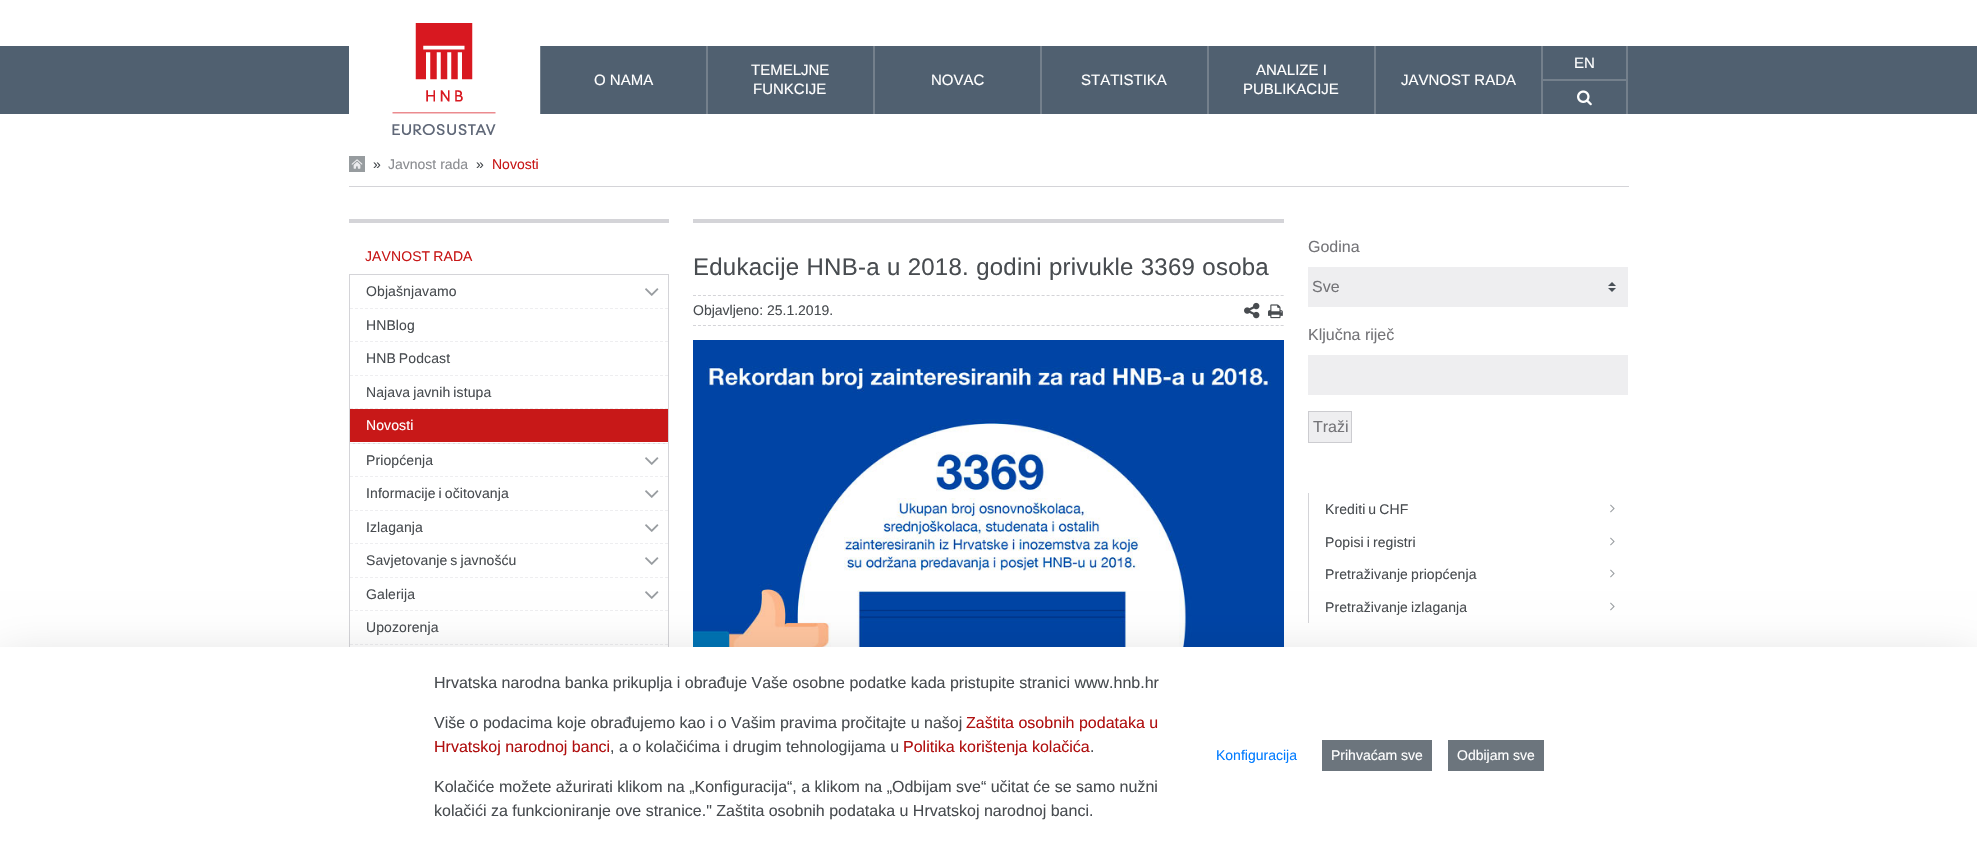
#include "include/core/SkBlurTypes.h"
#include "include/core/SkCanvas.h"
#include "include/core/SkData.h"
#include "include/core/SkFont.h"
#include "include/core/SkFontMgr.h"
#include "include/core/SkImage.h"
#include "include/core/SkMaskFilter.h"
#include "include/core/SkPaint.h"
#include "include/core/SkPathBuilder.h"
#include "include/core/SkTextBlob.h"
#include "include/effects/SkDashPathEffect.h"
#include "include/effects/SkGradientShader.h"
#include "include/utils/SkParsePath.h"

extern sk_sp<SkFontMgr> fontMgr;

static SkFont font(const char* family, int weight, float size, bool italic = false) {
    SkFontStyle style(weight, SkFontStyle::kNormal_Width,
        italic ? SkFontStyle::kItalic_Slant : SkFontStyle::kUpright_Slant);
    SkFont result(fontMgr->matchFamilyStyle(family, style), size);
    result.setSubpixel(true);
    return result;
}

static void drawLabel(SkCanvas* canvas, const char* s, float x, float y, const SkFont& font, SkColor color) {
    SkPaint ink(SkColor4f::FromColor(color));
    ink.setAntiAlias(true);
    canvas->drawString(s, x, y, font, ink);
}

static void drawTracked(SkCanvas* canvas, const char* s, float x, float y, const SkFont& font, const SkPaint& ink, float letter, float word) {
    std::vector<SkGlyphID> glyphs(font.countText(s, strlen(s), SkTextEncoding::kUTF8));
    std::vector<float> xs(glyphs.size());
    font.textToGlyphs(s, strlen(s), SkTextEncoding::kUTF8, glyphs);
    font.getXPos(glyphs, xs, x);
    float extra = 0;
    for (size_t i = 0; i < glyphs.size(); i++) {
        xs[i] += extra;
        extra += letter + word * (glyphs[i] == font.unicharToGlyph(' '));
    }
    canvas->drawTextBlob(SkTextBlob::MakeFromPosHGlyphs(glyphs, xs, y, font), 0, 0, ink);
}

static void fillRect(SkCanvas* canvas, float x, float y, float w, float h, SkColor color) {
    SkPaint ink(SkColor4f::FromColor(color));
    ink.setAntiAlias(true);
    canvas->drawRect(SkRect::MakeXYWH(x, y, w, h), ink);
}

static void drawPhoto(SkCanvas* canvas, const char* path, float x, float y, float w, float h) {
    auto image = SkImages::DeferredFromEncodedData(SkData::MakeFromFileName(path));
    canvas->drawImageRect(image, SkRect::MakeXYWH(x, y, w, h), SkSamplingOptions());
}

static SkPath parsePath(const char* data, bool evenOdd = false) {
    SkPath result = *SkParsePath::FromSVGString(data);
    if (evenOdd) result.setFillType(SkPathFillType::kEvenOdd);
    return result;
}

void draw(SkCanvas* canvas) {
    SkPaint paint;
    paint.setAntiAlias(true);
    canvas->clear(0xFFFFFFFF);
    fillRect(canvas, 0, 46, 1977, 68, 0xFF506070);
    fillRect(canvas, 349, 46, 191, 68, 0xFFFFFFFF);
    drawPhoto(canvas, "assets/img1.png", 392, 23, 104, 112);
    fillRect(canvas, 1626, 46, 2, 68, 0xFF74808C);
    fillRect(canvas, 1541, 46, 2, 68, 0xFF74808C);
    fillRect(canvas, 1543, 79, 83, 2, 0xFF74808C);
    SkFont font1 = font("Liberation Sans", 400, 15);
    drawLabel(canvas, "EN", 1574, 68, font1, 0xFFFFFFFF);
    drawPhoto(canvas, "assets/img2.png", 1577, 90, 15, 16);
    fillRect(canvas, 706, 46, 2, 68, 0xFF74808C);
    fillRect(canvas, 540, 46, 1, 68, 0xFF74808C);
    drawLabel(canvas, "O NAMA", 594, 85, font1, 0xFFFFFFFF);
    fillRect(canvas, 873, 46, 2, 68, 0xFF74808C);
    drawLabel(canvas, "TEMELJNE", 751, 75, font1, 0xFFFFFFFF);
    drawLabel(canvas, "FUNKCIJE", 753, 94, font1, 0xFFFFFFFF);
    fillRect(canvas, 1040, 46, 2, 68, 0xFF74808C);
    drawLabel(canvas, "NOVAC", 931, 85, font1, 0xFFFFFFFF);
    fillRect(canvas, 1207, 46, 2, 68, 0xFF74808C);
    drawLabel(canvas, "STATISTIKA", 1081, 85, font1, 0xFFFFFFFF);
    fillRect(canvas, 1374, 46, 2, 68, 0xFF74808C);
    drawLabel(canvas, "ANALIZE I", 1256, 75, font1, 0xFFFFFFFF);
    drawLabel(canvas, "PUBLIKACIJE", 1243, 94, font1, 0xFFFFFFFF);
    drawLabel(canvas, "JAVNOST RADA", 1401, 85, font1, 0xFFFFFFFF);
    fillRect(canvas, 349, 186, 1280, 1, 0xFFD4D4D8);
    drawPhoto(canvas, "assets/img3.png", 349, 156, 16, 16);
    SkFont font2 = font("Liberation Sans", 400, 14);
    drawLabel(canvas, "»", 373, 169, font2, 0xFF484C50);
    drawLabel(canvas, "Javnost rada", 388, 169, font2, 0xFF8A8C90);
    drawLabel(canvas, "»", 476, 169, font2, 0xFF484C50);
    drawLabel(canvas, "Novosti", 492, 169, font2, 0xFFC81818);
    fillRect(canvas, 349, 219, 320, 4, 0xFFD4D4D8);
    paint.setColor(0xFFC81818);
    drawTracked(canvas, "JAVNOST RADA", 365, 261, font2, paint, 0.1f, -1);
    paint.setStroke(true);
    paint.setStrokeWidth(1);
    paint.setColor(0xFFD4D4D8);
    canvas->drawRect(SkRect::MakeXYWH(349.5f, 274.5f, 319, 537), paint);
    paint.setColor(0xFFEEEEF0);
    paint.setPathEffect(SkDashPathEffect::Make({{3, 2}}, 0));
    canvas->drawPath(parsePath("M350 308.5H668"), paint);
    paint.setPathEffect(nullptr);
    paint.setStroke(false);
    paint.setColor(0xFF484C50);
    drawTracked(canvas, "Objašnjavamo", 366, 296, font2, paint, 0.1f, 0);
    drawPhoto(canvas, "assets/img4.png", 645, 288, 14, 8);
    paint.setStroke(true);
    paint.setColor(0xFFEEEEF0);
    paint.setPathEffect(SkDashPathEffect::Make({{3, 2}}, 0));
    canvas->drawPath(parsePath("M350 341.5H668"), paint);
    paint.setPathEffect(nullptr);
    paint.setStroke(false);
    paint.setColor(0xFF484C50);
    drawTracked(canvas, "HNBlog", 366, 330, font2, paint, 0.1f, 0);
    paint.setStroke(true);
    paint.setColor(0xFFEEEEF0);
    paint.setPathEffect(SkDashPathEffect::Make({{3, 2}}, 0));
    canvas->drawPath(parsePath("M350 375.5H668"), paint);
    paint.setPathEffect(nullptr);
    paint.setStroke(false);
    paint.setColor(0xFF484C50);
    drawTracked(canvas, "HNB Podcast", 366, 363, font2, paint, 0.1f, -1);
    paint.setStroke(true);
    paint.setColor(0xFFEEEEF0);
    paint.setPathEffect(SkDashPathEffect::Make({{3, 2}}, 0));
    canvas->drawPath(parsePath("M350 408.5H668"), paint);
    paint.setPathEffect(nullptr);
    paint.setStroke(false);
    paint.setColor(0xFF484C50);
    drawTracked(canvas, "Najava javnih istupa", 366, 397, font2, paint, 0.1f, -1);
    fillRect(canvas, 353, 443, 312, 1, 0xFFDCDCE0);
    paint.setStroke(true);
    paint.setColor(0xFFEEEEF0);
    paint.setPathEffect(SkDashPathEffect::Make({{3, 2}}, 0));
    canvas->drawPath(parsePath("M350 443.5H668"), paint);
    paint.setPathEffect(nullptr);
    fillRect(canvas, 350, 409, 318, 33, 0xFFC81818);
    paint.setStroke(false);
    paint.setColor(0xFFFFFFFF);
    drawTracked(canvas, "Novosti", 366, 430, font2, paint, 0.1f, 0);
    paint.setStroke(true);
    paint.setColor(0xFFEEEEF0);
    paint.setPathEffect(SkDashPathEffect::Make({{3, 2}}, 0));
    canvas->drawPath(parsePath("M350 476.5H668"), paint);
    paint.setPathEffect(nullptr);
    paint.setStroke(false);
    paint.setColor(0xFF484C50);
    drawTracked(canvas, "Priopćenja", 366, 465, font2, paint, 0.1f, 0);
    drawPhoto(canvas, "assets/img4.png", 645, 457, 14, 8);
    paint.setStroke(true);
    paint.setColor(0xFFEEEEF0);
    paint.setPathEffect(SkDashPathEffect::Make({{3, 2}}, 0));
    canvas->drawPath(parsePath("M350 510.5H668"), paint);
    paint.setPathEffect(nullptr);
    paint.setStroke(false);
    paint.setColor(0xFF484C50);
    drawTracked(canvas, "Informacije i očitovanja", 366, 498, font2, paint, 0.1f, -1);
    drawPhoto(canvas, "assets/img4.png", 645, 490, 14, 8);
    paint.setStroke(true);
    paint.setColor(0xFFEEEEF0);
    paint.setPathEffect(SkDashPathEffect::Make({{3, 2}}, 0));
    canvas->drawPath(parsePath("M350 543.5H668"), paint);
    paint.setPathEffect(nullptr);
    paint.setStroke(false);
    paint.setColor(0xFF484C50);
    drawTracked(canvas, "Izlaganja", 366, 532, font2, paint, 0.1f, 0);
    drawPhoto(canvas, "assets/img4.png", 645, 524, 14, 8);
    paint.setStroke(true);
    paint.setColor(0xFFEEEEF0);
    paint.setPathEffect(SkDashPathEffect::Make({{3, 2}}, 0));
    canvas->drawPath(parsePath("M350 577.5H668"), paint);
    paint.setPathEffect(nullptr);
    paint.setStroke(false);
    paint.setColor(0xFF484C50);
    drawTracked(canvas, "Savjetovanje s javnošću", 366, 565, font2, paint, 0.1f, -1);
    drawPhoto(canvas, "assets/img4.png", 645, 557, 14, 8);
    paint.setStroke(true);
    paint.setColor(0xFFEEEEF0);
    paint.setPathEffect(SkDashPathEffect::Make({{3, 2}}, 0));
    canvas->drawPath(parsePath("M350 610.5H668"), paint);
    paint.setPathEffect(nullptr);
    paint.setStroke(false);
    paint.setColor(0xFF484C50);
    drawTracked(canvas, "Galerija", 366, 599, font2, paint, 0.1f, 0);
    drawPhoto(canvas, "assets/img4.png", 645, 591, 14, 8);
    paint.setStroke(true);
    paint.setColor(0xFFEEEEF0);
    paint.setPathEffect(SkDashPathEffect::Make({{3, 2}}, 0));
    canvas->drawPath(parsePath("M350 644.5H668"), paint);
    paint.setPathEffect(nullptr);
    paint.setStroke(false);
    paint.setColor(0xFF484C50);
    drawTracked(canvas, "Upozorenja", 366, 632, font2, paint, 0.1f, 0);
    fillRect(canvas, 693, 219, 591, 4, 0xFFD4D4D8);
    SkFont font3 = font("Liberation Sans", 400, 24);
    drawTracked(canvas, "Edukacije HNB-a u 2018. godini privukle 3369 osoba", 693, 275, font3, paint, 0.25f, 0.25f);
    paint.setStroke(true);
    paint.setColor(0xFFD4D4D8);
    paint.setPathEffect(SkDashPathEffect::Make({{3, 1.98f}}, 0));
    canvas->drawPath(parsePath("M693 295.5H1284"), paint);
    paint.setPathEffect(nullptr);
    paint.setPathEffect(SkDashPathEffect::Make({{3, 1.98f}}, 0));
    canvas->drawPath(parsePath("M693 325.5H1284"), paint);
    paint.setPathEffect(nullptr);
    drawLabel(canvas, "Objavljeno: 25.1.2019.", 693, 315, font2, 0xFF484C50);
    drawPhoto(canvas, "assets/img5.png", 1244, 302, 16, 17);
    drawPhoto(canvas, "assets/img6.png", 1268, 304, 15, 15);
    drawPhoto(canvas, "assets/img7.png", 693, 340, 591, 307);
    SkFont font4 = font("Liberation Sans", 400, 16);
    drawLabel(canvas, "Godina", 1308, 252, font4, 0xFF747478);
    fillRect(canvas, 1308, 267, 320, 40, 0xFFEEEEF0);
    drawPhoto(canvas, "assets/img8.png", 1608, 282, 8, 10);
    drawLabel(canvas, "Sve", 1312, 292, font4, 0xFF747478);
    drawLabel(canvas, "Ključna riječ", 1308, 340, font4, 0xFF747478);
    fillRect(canvas, 1308, 355, 320, 40, 0xFFEEEEF0);
    paint.setStroke(false);
    paint.setColor(0xFFEEEEF0);
    canvas->drawRect(SkRect::MakeXYWH(1308.5f, 411.5f, 43, 31), paint);
    paint.setStroke(true);
    paint.setColor(0xFFCCCCD0);
    canvas->drawRect(SkRect::MakeXYWH(1308.5f, 411.5f, 43, 31), paint);
    drawLabel(canvas, "Traži", 1313, 432, font4, 0xFF747478);
    fillRect(canvas, 1308, 493, 1, 130, 0xFFD4D4D8);
    paint.setStroke(false);
    paint.setColor(0xFF484C50);
    drawTracked(canvas, "Krediti u CHF", 1325, 514, font2, paint, 0.1f, -1);
    drawPhoto(canvas, "assets/img9.png", 1610, 504, 5, 9);
    drawTracked(canvas, "Popisi i registri", 1325, 547, font2, paint, 0.1f, -1);
    drawPhoto(canvas, "assets/img9.png", 1610, 537, 5, 9);
    drawTracked(canvas, "Pretraživanje priopćenja", 1325, 579, font2, paint, 0.1f, -1);
    drawPhoto(canvas, "assets/img9.png", 1610, 569, 5, 9);
    drawTracked(canvas, "Pretraživanje izlaganja", 1325, 612, font2, paint, 0.1f, -1);
    drawPhoto(canvas, "assets/img9.png", 1610, 602, 5, 9);
    paint.setColor(0x2E000000);
    paint.setMaskFilter(SkMaskFilter::MakeBlur(kNormal_SkBlurStyle, 24));
    canvas->drawRect(SkRect::MakeXYWH(0, 663, 1977, 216), paint);
    paint.setMaskFilter(nullptr);
    fillRect(canvas, 0, 647, 1977, 216, 0xFFFFFFFF);
    drawLabel(canvas, "Hrvatska narodna banka prikuplja i obrađuje Vaše osobne podatke kada pristupite stranici www.hnb.hr", 434, 688, font4, 0xFF484C50);
    drawLabel(canvas, "Više o podacima koje obrađujemo kao i o Vašim pravima pročitajte u našoj", 434, 728, font4, 0xFF484C50);
    drawLabel(canvas, "Zaštita osobnih podataka u", 966, 728, font4, 0xFFB01010);
    drawLabel(canvas, "Hrvatskoj narodnoj banci", 434, 752, font4, 0xFFB01010);
    drawLabel(canvas, ", a o kolačićima i drugim tehnologijama u", 610, 752, font4, 0xFF484C50);
    drawLabel(canvas, "Politika korištenja kolačića", 903, 752, font4, 0xFFB01010);
    drawLabel(canvas, ".", 1090, 752, font4, 0xFF484C50);
    drawLabel(canvas, "Kolačiće možete ažurirati klikom na „Konfiguracija“, a klikom na „Odbijam sve“ učitat će se samo nužni", 434, 792, font4, 0xFF484C50);
    drawLabel(canvas, "kolačići za funkcioniranje ove stranice.\" Zaštita osobnih podataka u Hrvatskoj narodnoj banci.", 434, 816, font4, 0xFF484C50);
    drawLabel(canvas, "Konfiguracija", 1216, 760, font2, 0xFF007BFF);
    fillRect(canvas, 1322, 740, 110, 31, 0xFF6C757D);
    drawLabel(canvas, "Prihvaćam sve", 1331, 760, font2, 0xFFFFFFFF);
    fillRect(canvas, 1448, 740, 96, 31, 0xFF6C757D);
    drawLabel(canvas, "Odbijam sve", 1457, 760, font2, 0xFFFFFFFF);
}
